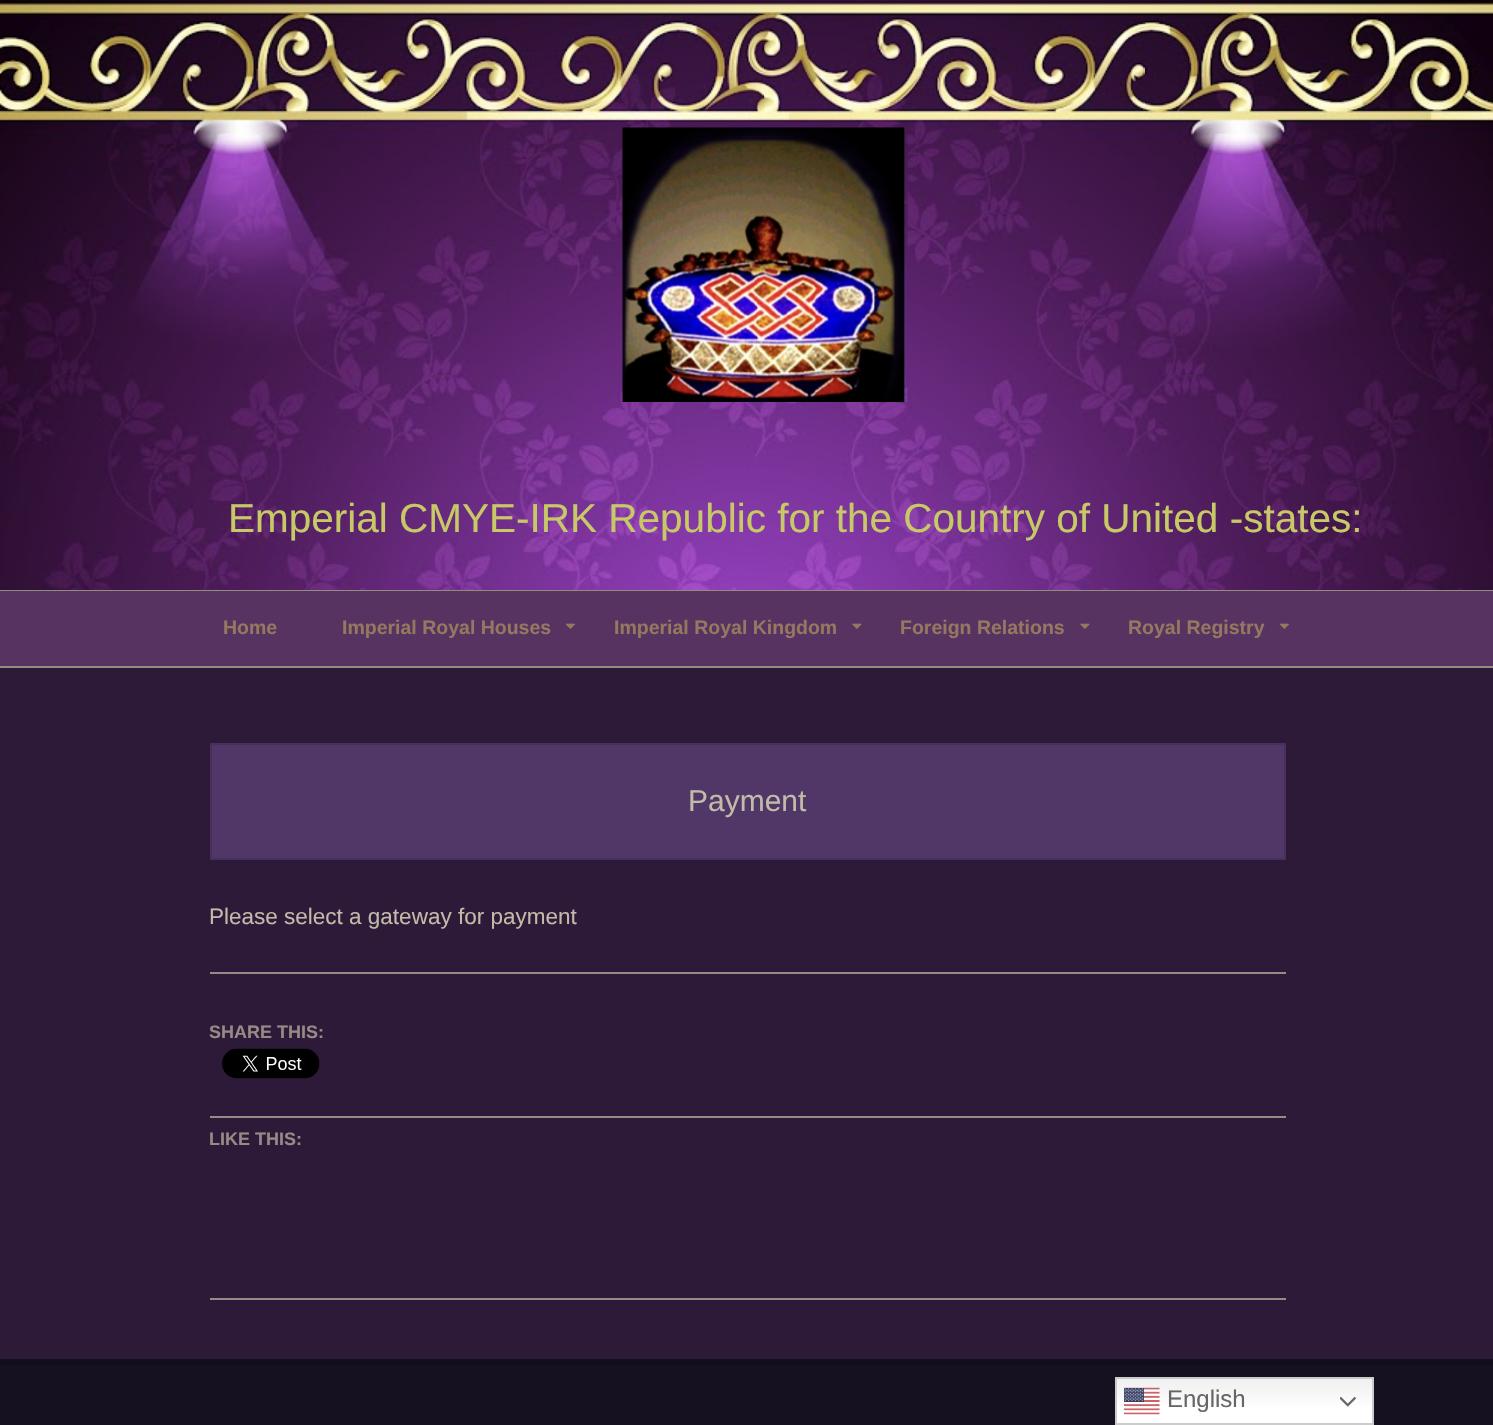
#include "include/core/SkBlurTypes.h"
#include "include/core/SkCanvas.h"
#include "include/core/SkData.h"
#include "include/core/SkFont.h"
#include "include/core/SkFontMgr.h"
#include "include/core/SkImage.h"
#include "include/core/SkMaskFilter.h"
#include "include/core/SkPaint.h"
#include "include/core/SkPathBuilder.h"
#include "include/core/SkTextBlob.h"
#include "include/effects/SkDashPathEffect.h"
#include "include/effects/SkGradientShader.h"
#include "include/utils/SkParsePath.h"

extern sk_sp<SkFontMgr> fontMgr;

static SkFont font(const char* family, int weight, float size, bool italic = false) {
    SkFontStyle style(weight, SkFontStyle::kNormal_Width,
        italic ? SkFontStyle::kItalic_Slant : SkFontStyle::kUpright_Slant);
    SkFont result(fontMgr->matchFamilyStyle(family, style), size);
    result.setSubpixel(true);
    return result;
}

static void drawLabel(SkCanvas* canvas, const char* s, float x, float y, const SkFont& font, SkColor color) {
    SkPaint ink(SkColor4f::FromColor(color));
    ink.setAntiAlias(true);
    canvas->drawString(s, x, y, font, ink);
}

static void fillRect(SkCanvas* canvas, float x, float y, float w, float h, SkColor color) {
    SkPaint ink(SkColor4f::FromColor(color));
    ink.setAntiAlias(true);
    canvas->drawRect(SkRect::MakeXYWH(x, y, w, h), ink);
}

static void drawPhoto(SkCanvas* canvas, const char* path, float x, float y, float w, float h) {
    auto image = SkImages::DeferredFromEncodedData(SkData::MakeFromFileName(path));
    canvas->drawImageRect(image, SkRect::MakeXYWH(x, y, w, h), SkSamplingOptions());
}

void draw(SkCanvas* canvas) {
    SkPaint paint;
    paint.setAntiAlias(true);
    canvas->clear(0xFF2D1938);
    drawPhoto(canvas, "assets/img1.png", 0, 0, 1493, 590);
    fillRect(canvas, 0, 590, 1493, 1, 0xFF958C81);
    drawPhoto(canvas, "assets/img2.png", 622, 127, 286, 275);
    SkFont font1 = font("Liberation Sans", 400, 40.5f);
    drawLabel(canvas, "Emperial CMYE-IRK Republic for the Country of United -states:", 228, 532, font1, 0xFFC7C966);
    fillRect(canvas, 0, 591, 1493, 75, 0xFF573361);
    fillRect(canvas, 0, 666, 1493, 2, 0xFF958C81);
    SkFont font2 = font("Liberation Sans", 700, 19.5f);
    drawLabel(canvas, "Home", 223, 634, font2, 0xFF967760);
    drawLabel(canvas, "Imperial Royal Houses", 342, 634, font2, 0xFF967760);
    drawPhoto(canvas, "assets/img3.png", 565, 623, 10, 6);
    drawLabel(canvas, "Imperial Royal Kingdom", 614, 634, font2, 0xFF967760);
    drawPhoto(canvas, "assets/img4.png", 852, 623, 10, 6);
    drawLabel(canvas, "Foreign Relations", 900, 634, font2, 0xFF967760);
    drawPhoto(canvas, "assets/img4.png", 1080, 623, 10, 6);
    drawLabel(canvas, "Royal Registry", 1128, 634, font2, 0xFF967760);
    drawPhoto(canvas, "assets/img3.png", 1279, 623, 10, 6);
    paint.setColor(0xFF513668);
    canvas->drawRect(SkRect::MakeXYWH(211, 744, 1074, 115), paint);
    paint.setStroke(true);
    paint.setStrokeWidth(2);
    paint.setColor(0xFF47305C);
    canvas->drawRect(SkRect::MakeXYWH(211, 744, 1074, 115), paint);
    SkFont font3 = font("Liberation Sans", 400, 30);
    drawLabel(canvas, "Payment", 688, 811, font3, 0xFFC1BBA8);
    fillRect(canvas, 210, 1298, 1076, 2, 0xFF958C81);
    SkFont font4 = font("Liberation Sans", 400, 22.5f);
    drawLabel(canvas, "Please select a gateway for payment", 209, 924, font4, 0xFFC1BBA8);
    fillRect(canvas, 210, 972, 1076, 2, 0xFF958C81);
    SkFont font5 = font("Liberation Sans", 700, 18);
    drawLabel(canvas, "SHARE THIS:", 209, 1038, font5, 0xFF958A85);
    drawPhoto(canvas, "assets/img5.png", 222, 1048, 98, 31);
    fillRect(canvas, 210, 1116, 1076, 2, 0xFF958C81);
    drawLabel(canvas, "LIKE THIS:", 209, 1145, font5, 0xFF958A85);
    fillRect(canvas, 0, 1365, 1493, 60, 0xFF151121);
    fillRect(canvas, 0, 1359, 1493, 6, 0xFF120F1D);
    paint.setStroke(false);
    {
        const SkColor colors[] = {0xFFEFEFEF, 0xFFFFFFFF};
        const float stops[] = {0, 0.7f};
        const SkPoint ends[] = {{1244, 1377}, {1244, 1425}};
        paint.setShader(SkGradientShader::MakeLinear(ends, colors, stops, 2, SkTileMode::kClamp));
        paint.setAlpha(255);
    }
    canvas->drawRect(SkRect::MakeXYWH(1117, 1379, 255, 44), paint);
    paint.setStroke(true);
    paint.setShader(nullptr);
    paint.setColor(0xFFCCCCCC);
    canvas->drawRect(SkRect::MakeXYWH(1116, 1378, 257, 46), paint);
    drawPhoto(canvas, "assets/img6.png", 1124, 1387, 36, 28);
    SkFont font6 = font("Liberation Sans", 400, 24);
    drawLabel(canvas, "English", 1167, 1407, font6, 0xFF666666);
    drawPhoto(canvas, "assets/img7.png", 1340, 1397, 16, 10);
}
